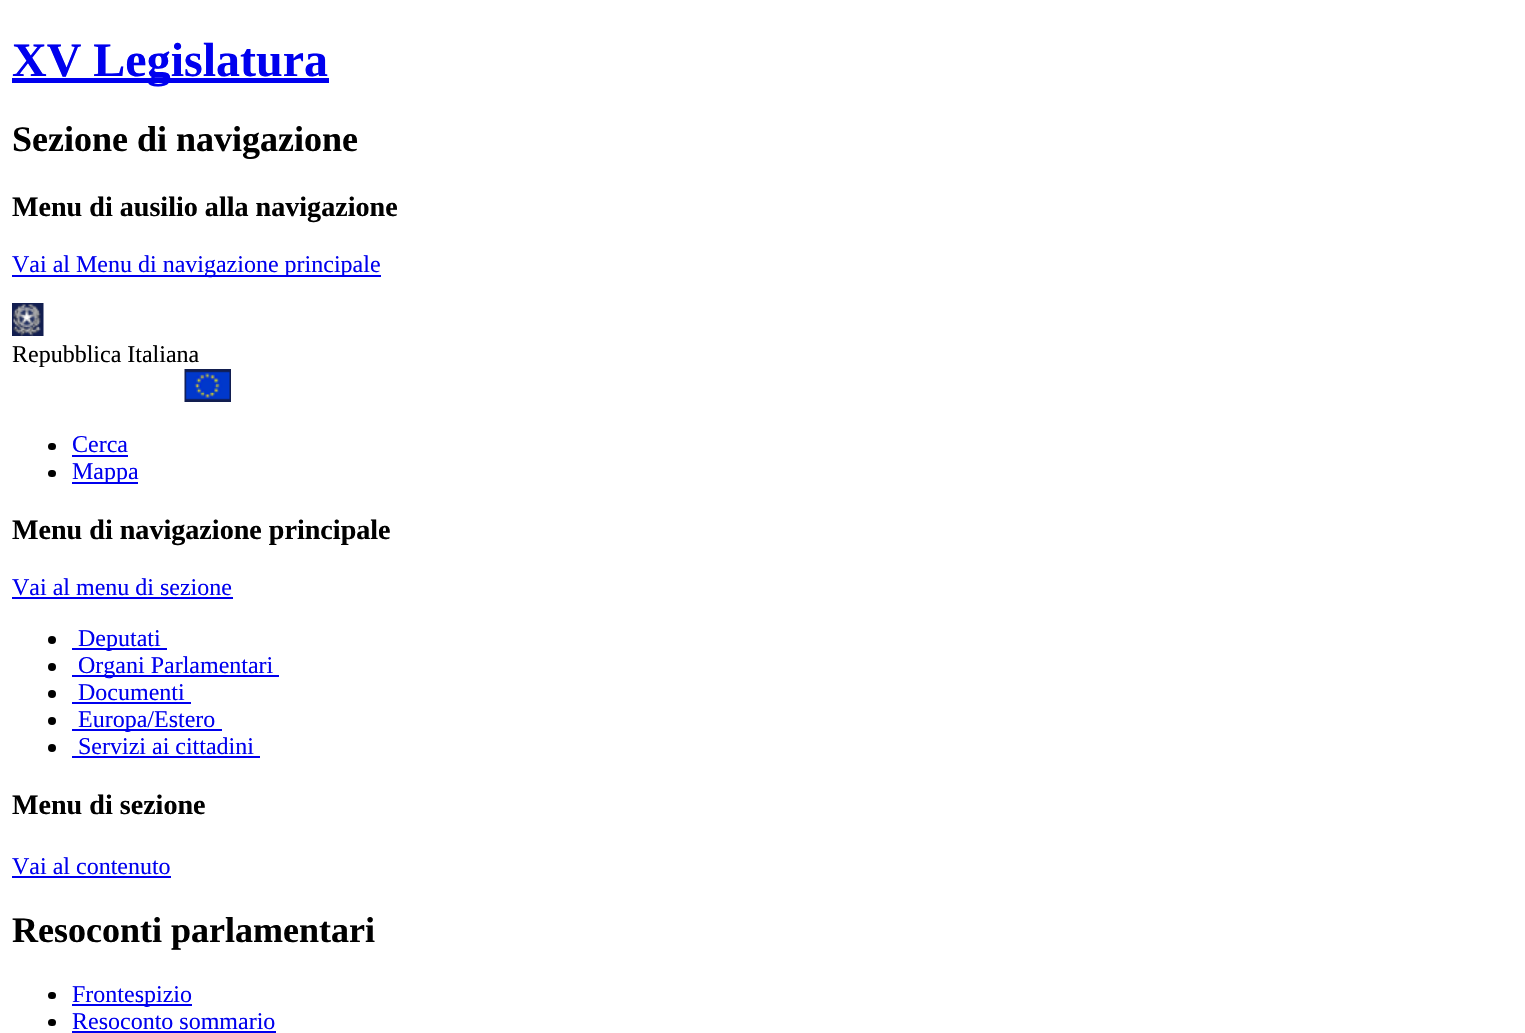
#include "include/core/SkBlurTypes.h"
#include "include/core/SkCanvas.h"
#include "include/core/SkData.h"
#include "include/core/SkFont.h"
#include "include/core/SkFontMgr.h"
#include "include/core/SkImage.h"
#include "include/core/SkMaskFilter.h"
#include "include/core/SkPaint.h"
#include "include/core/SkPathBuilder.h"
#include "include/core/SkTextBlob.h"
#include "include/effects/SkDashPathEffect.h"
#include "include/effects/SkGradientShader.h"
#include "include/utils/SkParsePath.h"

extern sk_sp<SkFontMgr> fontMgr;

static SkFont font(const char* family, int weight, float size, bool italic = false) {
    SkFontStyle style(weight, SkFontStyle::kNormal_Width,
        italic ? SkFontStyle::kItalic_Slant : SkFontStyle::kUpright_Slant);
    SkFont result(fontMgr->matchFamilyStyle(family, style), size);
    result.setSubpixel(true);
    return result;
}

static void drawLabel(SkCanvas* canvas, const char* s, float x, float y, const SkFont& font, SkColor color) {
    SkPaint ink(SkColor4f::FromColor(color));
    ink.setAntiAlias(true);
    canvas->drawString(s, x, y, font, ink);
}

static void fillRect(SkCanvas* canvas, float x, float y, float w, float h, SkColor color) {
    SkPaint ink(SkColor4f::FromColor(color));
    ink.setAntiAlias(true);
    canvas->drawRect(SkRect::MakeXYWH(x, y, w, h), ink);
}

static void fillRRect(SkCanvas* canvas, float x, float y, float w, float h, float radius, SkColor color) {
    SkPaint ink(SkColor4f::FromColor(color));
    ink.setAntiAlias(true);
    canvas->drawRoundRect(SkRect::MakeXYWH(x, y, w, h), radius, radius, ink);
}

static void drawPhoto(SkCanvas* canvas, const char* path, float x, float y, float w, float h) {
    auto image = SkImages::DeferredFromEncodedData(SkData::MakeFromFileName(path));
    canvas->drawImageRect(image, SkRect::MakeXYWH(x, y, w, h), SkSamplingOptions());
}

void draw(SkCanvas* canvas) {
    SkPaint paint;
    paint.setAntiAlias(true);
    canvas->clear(0xFFFFFFFF);
    fillRect(canvas, 12, 78, 317, 5, 0xFF0000EE);
    SkFont font1 = font("Liberation Serif", 700, 48);
    drawLabel(canvas, "XV Legislatura", 12, 76, font1, 0xFF0000EE);
    SkFont font2 = font("Liberation Serif", 700, 36);
    drawLabel(canvas, "Sezione di navigazione", 12, 151, font2, 0xFF000000);
    SkFont font3 = font("Liberation Serif", 700, 28.1f);
    drawLabel(canvas, "Menu di ausilio alla navigazione", 12, 216, font3, 0xFF000000);
    fillRect(canvas, 12, 275, 369, 2, 0xFF0000EE);
    SkFont font4 = font("Liberation Serif", 400, 24);
    drawLabel(canvas, "Vai al Menu di navigazione principale", 12, 272, font4, 0xFF0000EE);
    drawPhoto(canvas, "assets/img1.png", 12, 303, 32, 33);
    drawLabel(canvas, "Repubblica Italiana", 12, 362, font4, 0xFF000000);
    drawPhoto(canvas, "assets/img2.png", 184, 369, 47, 33);
    fillRRect(canvas, 48, 443, 8, 7, 3.5f, 0xFF000000);
    drawLabel(canvas, "Cerca", 72, 452, font4, 0xFF0000EE);
    fillRect(canvas, 72, 455, 56, 2, 0xFF0000EE);
    fillRRect(canvas, 48, 470, 8, 7, 3.5f, 0xFF000000);
    fillRect(canvas, 72, 482, 66, 2, 0xFF0000EE);
    drawLabel(canvas, "Mappa", 72, 479, font4, 0xFF0000EE);
    drawLabel(canvas, "Menu di navigazione principale", 12, 539, font3, 0xFF000000);
    drawLabel(canvas, "Vai al menu di sezione", 12, 595, font4, 0xFF0000EE);
    fillRect(canvas, 12, 597, 221, 2, 0xFF0000EE);
    paint.setColor(0xFF000000);
    canvas->drawCircle(52, 640, 4, paint);
    fillRect(canvas, 72, 648, 95, 2, 0xFF0000EE);
    drawLabel(canvas, "Deputati", 78, 646, font4, 0xFF0000EE);
    canvas->drawCircle(52, 667, 4, paint);
    fillRect(canvas, 72, 675, 207, 2, 0xFF0000EE);
    drawLabel(canvas, "Organi Parlamentari", 78, 673, font4, 0xFF0000EE);
    canvas->drawCircle(52, 694, 4, paint);
    drawLabel(canvas, "Documenti", 78, 700, font4, 0xFF0000EE);
    fillRect(canvas, 72, 702, 119, 2, 0xFF0000EE);
    canvas->drawCircle(52, 721, 4, paint);
    fillRect(canvas, 72, 729, 150, 2, 0xFF0000EE);
    drawLabel(canvas, "Europa/Estero", 78, 727, font4, 0xFF0000EE);
    canvas->drawCircle(52, 748, 4, paint);
    drawLabel(canvas, "Servizi ai cittadini", 78, 754, font4, 0xFF0000EE);
    fillRect(canvas, 72, 756, 188, 2, 0xFF0000EE);
    drawLabel(canvas, "Menu di sezione", 12, 814, font3, 0xFF000000);
    drawLabel(canvas, "Vai al contenuto", 12, 874, font4, 0xFF0000EE);
    fillRect(canvas, 12, 876, 159, 2, 0xFF0000EE);
    drawLabel(canvas, "Resoconti parlamentari", 12, 942, font2, 0xFF000000);
    fillRRect(canvas, 48, 992, 8, 7, 3.5f, 0xFF000000);
    fillRect(canvas, 72, 1004, 120, 2, 0xFF0000EE);
    drawLabel(canvas, "Frontespizio", 72, 1002, font4, 0xFF0000EE);
    fillRRect(canvas, 48, 1019, 8, 7, 3.5f, 0xFF000000);
    drawLabel(canvas, "Resoconto sommario", 72, 1029, font4, 0xFF0000EE);
    fillRect(canvas, 72, 1031, 204, 2, 0xFF0000EE);
}
